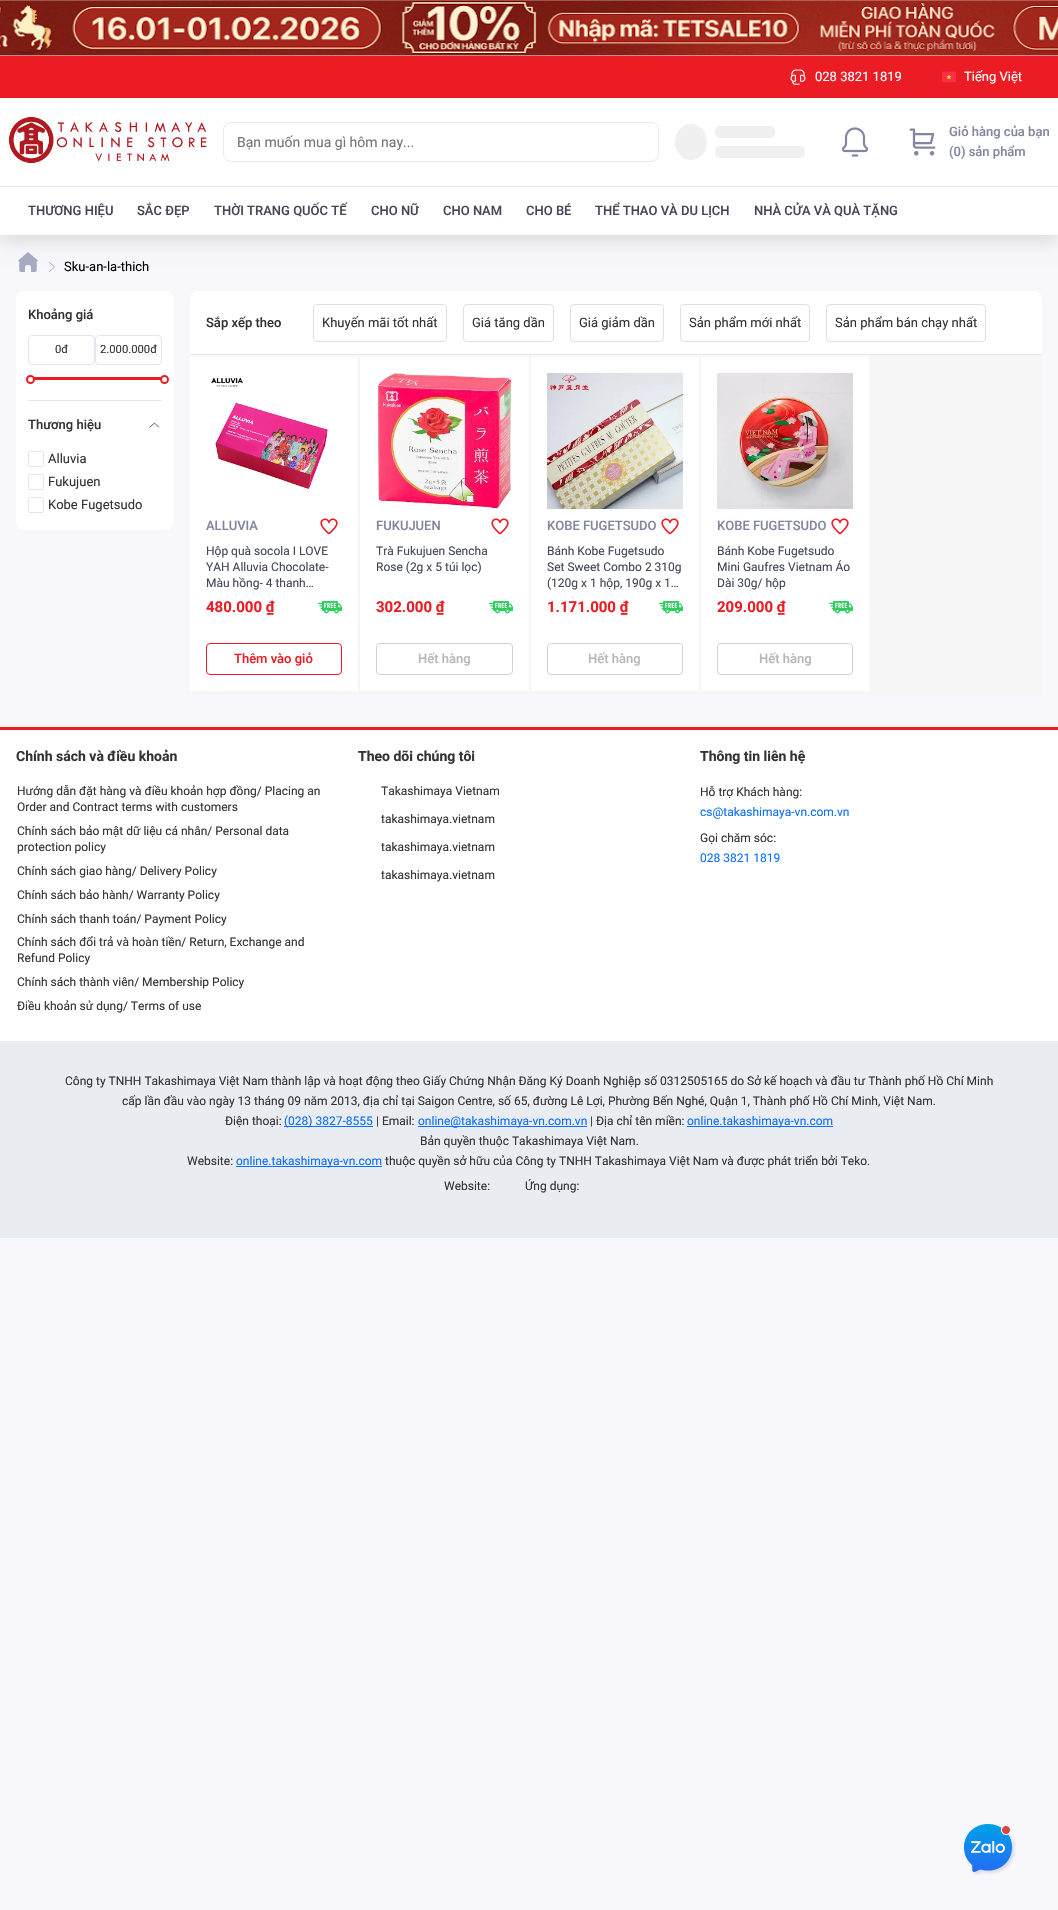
#include "include/core/SkBlurTypes.h"
#include "include/core/SkCanvas.h"
#include "include/core/SkData.h"
#include "include/core/SkFont.h"
#include "include/core/SkFontMgr.h"
#include "include/core/SkImage.h"
#include "include/core/SkMaskFilter.h"
#include "include/core/SkPaint.h"
#include "include/core/SkPathBuilder.h"
#include "include/core/SkTextBlob.h"
#include "include/effects/SkDashPathEffect.h"
#include "include/effects/SkGradientShader.h"
#include "include/utils/SkParsePath.h"

extern sk_sp<SkFontMgr> fontMgr;

static SkFont font(const char* family, int weight, float size, bool italic = false) {
    SkFontStyle style(weight, SkFontStyle::kNormal_Width,
        italic ? SkFontStyle::kItalic_Slant : SkFontStyle::kUpright_Slant);
    SkFont result(fontMgr->matchFamilyStyle(family, style), size);
    result.setSubpixel(true);
    return result;
}

static void drawLabel(SkCanvas* canvas, const char* s, float x, float y, const SkFont& font, SkColor color) {
    SkPaint ink(SkColor4f::FromColor(color));
    ink.setAntiAlias(true);
    canvas->drawString(s, x, y, font, ink);
}

static void fillRect(SkCanvas* canvas, float x, float y, float w, float h, SkColor color) {
    SkPaint ink(SkColor4f::FromColor(color));
    ink.setAntiAlias(true);
    canvas->drawRect(SkRect::MakeXYWH(x, y, w, h), ink);
}

static void fillRRect(SkCanvas* canvas, float x, float y, float w, float h, float radius, SkColor color) {
    SkPaint ink(SkColor4f::FromColor(color));
    ink.setAntiAlias(true);
    canvas->drawRoundRect(SkRect::MakeXYWH(x, y, w, h), radius, radius, ink);
}

static void drawPhoto(SkCanvas* canvas, const char* path, float x, float y, float w, float h) {
    auto image = SkImages::DeferredFromEncodedData(SkData::MakeFromFileName(path));
    canvas->drawImageRect(image, SkRect::MakeXYWH(x, y, w, h), SkSamplingOptions());
}

static SkPath parsePath(const char* data, bool evenOdd = false) {
    SkPath result = *SkParsePath::FromSVGString(data);
    if (evenOdd) result.setFillType(SkPathFillType::kEvenOdd);
    return result;
}

void draw(SkCanvas* canvas) {
    SkPaint paint;
    paint.setAntiAlias(true);
    canvas->clear(0xFFF8F8FC);
    drawPhoto(canvas, "assets/img1.png", 0, 0, 1058, 56);
    fillRect(canvas, 0, 56, 1058, 42, 0xFFEC1C24);
    drawPhoto(canvas, "assets/img2.png", 790, 69, 16, 16);
    SkFont font1 = font("Roboto", 400, 13);
    drawLabel(canvas, "028 3821 1819", 815, 81, font1, 0xFFFFFFFF);
    drawPhoto(canvas, "assets/img3.png", 942, 71, 14, 12);
    drawLabel(canvas, "Tiếng Việt", 964, 81, font1, 0xFFFFFFFF);
    drawPhoto(canvas, "assets/img7.png", 18, 252, 20, 20);
    paint.setStroke(true);
    paint.setStrokeWidth(1);
    paint.setStrokeCap(SkPaint::kRound_Cap);
    paint.setStrokeJoin(SkPaint::kRound_Join);
    paint.setColor(0xFFA7ABC3);
    canvas->drawPath(parsePath("M49.5 271.5L54.5 267L49.5 262.5"), paint);
    paint.setStroke(false);
    paint.setColor(0x1A000000);
    paint.setMaskFilter(SkMaskFilter::MakeBlur(kNormal_SkBlurStyle, 8));
    canvas->drawRect(SkRect::MakeXYWH(0, 106, 1058, 137), paint);
    paint.setMaskFilter(nullptr);
    fillRect(canvas, 0, 98, 1058, 137, 0xFFFFFFFF);
    drawPhoto(canvas, "assets/img4.png", 8, 116, 199, 48);
    paint.setStroke(true);
    paint.setStrokeCap(SkPaint::kButt_Cap);
    paint.setStrokeJoin(SkPaint::kMiter_Join);
    paint.setColor(0xFFEAEAEA);
    canvas->drawRoundRect(SkRect::MakeXYWH(223.5f, 122.5f, 435, 39), 7.5f, 7.5f, paint);
    SkFont font2 = font("Roboto", 400, 14);
    drawLabel(canvas, "Bạn muốn mua gì hôm nay...", 237, 147, font2, 0xFF757575);
    paint.setStroke(false);
    paint.setColor(0xFFF0F0F0);
    canvas->drawOval(SkRect::MakeXYWH(675, 124, 32, 36), paint);
    fillRRect(canvas, 715, 126, 60, 12, 5, 0xFFF0F0F0);
    fillRRect(canvas, 715, 146, 90, 12, 5, 0xFFF0F0F0);
    drawPhoto(canvas, "assets/img5.png", 841, 127, 28, 30);
    drawPhoto(canvas, "assets/img6.png", 909, 128, 27, 28);
    SkFont font3 = font("Roboto", 500, 13);
    drawLabel(canvas, "Giỏ hàng của bạn", 949, 136, font3, 0xFF82869E);
    drawLabel(canvas, "(0) sản phẩm", 949, 156, font3, 0xFF82869E);
    fillRect(canvas, 0, 186, 1058, 1, 0xFFE4E5F0);
    drawLabel(canvas, "THƯƠNG HIỆU", 28, 215, font3, 0xFF434657);
    drawLabel(canvas, "SẮC ĐẸP", 137, 215, font3, 0xFF434657);
    drawLabel(canvas, "THỜI TRANG QUỐC TẾ", 214, 215, font3, 0xFF434657);
    canvas->save();
    canvas->clipRect(SkRect::MakeXYWH(371, 201, 48, 20));
    drawLabel(canvas, "CHO NỮ", 371, 215, font3, 0xFF434657);
    canvas->restore();
    drawLabel(canvas, "CHO NAM", 443, 215, font3, 0xFF434657);
    drawLabel(canvas, "CHO BÉ", 526, 215, font3, 0xFF434657);
    drawLabel(canvas, "THỂ THAO VÀ DU LỊCH", 595, 215, font3, 0xFF434657);
    drawLabel(canvas, "NHÀ CỬA VÀ QUÀ TẶNG", 754, 215, font3, 0xFF434657);
    drawLabel(canvas, "Sku-an-la-thich", 64, 271, font1, 0xFF000000);
    fillRRect(canvas, 16, 291, 158, 239, 8, 0xFFFFFFFF);
    drawLabel(canvas, "Khoảng giá", 28, 319, font3, 0xFF333333);
    paint.setStroke(true);
    paint.setColor(0xFFE4E5F0);
    canvas->drawRoundRect(SkRect::MakeXYWH(28.5f, 335.5f, 66, 29), 3.5f, 3.5f, paint);
    SkFont font4 = font("Roboto", 400, 11.25f);
    drawLabel(canvas, "0đ", 55, 353, font4, 0xFF333333);
    canvas->drawRoundRect(SkRect::MakeXYWH(95.5f, 335.5f, 66, 29), 3.5f, 3.5f, paint);
    drawLabel(canvas, "2.000.000đ", 100, 353, font4, 0xFF333333);
    fillRect(canvas, 28, 377, 134, 3, 0xFFEC1C24);
    paint.setStroke(false);
    paint.setColor(0xFFFFFFFF);
    canvas->drawCircle(30.5f, 379.5f, 3.5f, paint);
    paint.setStroke(true);
    paint.setStrokeWidth(2);
    paint.setColor(0xFFEC1C24);
    canvas->drawCircle(30.5f, 379.5f, 3.5f, paint);
    paint.setStroke(false);
    paint.setColor(0xFFFFFFFF);
    canvas->drawCircle(164.5f, 379.5f, 3.5f, paint);
    paint.setStroke(true);
    paint.setColor(0xFFEC1C24);
    canvas->drawCircle(164.5f, 379.5f, 3.5f, paint);
    fillRect(canvas, 28, 400, 134, 1, 0xFFE4E5F0);
    drawLabel(canvas, "Thương hiệu", 28, 429, font3, 0xFF333333);
    paint.setStrokeWidth(0.9f);
    paint.setStrokeCap(SkPaint::kRound_Cap);
    paint.setStrokeJoin(SkPaint::kRound_Join);
    paint.setColor(0xFF434657);
    canvas->drawPath(parsePath("M158.5 427L154.5 423L150 427"), paint);
    paint.setStrokeWidth(1);
    paint.setStrokeCap(SkPaint::kButt_Cap);
    paint.setStrokeJoin(SkPaint::kMiter_Join);
    paint.setColor(0xFFE4E5F0);
    canvas->drawRoundRect(SkRect::MakeXYWH(28.5f, 451.5f, 15, 15), 1.5f, 1.5f, paint);
    drawLabel(canvas, "Alluvia", 48, 463, font1, 0xFF333333);
    canvas->drawRoundRect(SkRect::MakeXYWH(28.5f, 474.5f, 15, 15), 1.5f, 1.5f, paint);
    drawLabel(canvas, "Fukujuen", 48, 486, font1, 0xFF333333);
    canvas->drawRoundRect(SkRect::MakeXYWH(28.5f, 497.5f, 15, 15), 1.5f, 1.5f, paint);
    drawLabel(canvas, "Kobe Fugetsudo", 48, 509, font1, 0xFF333333);
    fillRRect(canvas, 190, 291, 852, 404, 8, 0xFFFFFFFF);
    fillRect(canvas, 190, 354, 852, 1, 0xFFEAEAEA);
    drawLabel(canvas, "Sắp xếp theo", 206, 327, font3, 0xFF333333);
    paint.setColor(0xFFE0E0E0);
    canvas->drawRoundRect(SkRect::MakeXYWH(313.5f, 304.5f, 133, 37), 3.5f, 3.5f, paint);
    drawLabel(canvas, "Khuyến mãi tốt nhất", 322, 327, font1, 0xFF333333);
    canvas->drawRoundRect(SkRect::MakeXYWH(463.5f, 304.5f, 90, 37), 3.5f, 3.5f, paint);
    drawLabel(canvas, "Giá tăng dần", 472, 327, font1, 0xFF333333);
    canvas->drawRoundRect(SkRect::MakeXYWH(570.5f, 304.5f, 93, 37), 3.5f, 3.5f, paint);
    drawLabel(canvas, "Giá giảm dần", 579, 327, font1, 0xFF333333);
    canvas->drawRoundRect(SkRect::MakeXYWH(680.5f, 304.5f, 129, 37), 3.5f, 3.5f, paint);
    drawLabel(canvas, "Sản phẩm mới nhất", 689, 327, font1, 0xFF333333);
    canvas->drawRoundRect(SkRect::MakeXYWH(826.5f, 304.5f, 159, 37), 3.5f, 3.5f, paint);
    drawLabel(canvas, "Sản phẩm bán chạy nhất", 835, 327, font1, 0xFF333333);
    fillRect(canvas, 190, 355, 852, 340, 0xFFF6F6F6);
    fillRect(canvas, 190, 357, 168, 334, 0xFFFFFFFF);
    drawPhoto(canvas, "assets/img8.png", 211, 377, 117, 112);
    drawLabel(canvas, "ALLUVIA", 206, 530, font3, 0xFF82869E);
    drawPhoto(canvas, "assets/img9.png", 320, 518, 18, 17);
    SkFont font5 = font("Roboto", 400, 12);
    drawLabel(canvas, "Hộp quà socola I LOVE", 206, 555, font5, 0xFF434657);
    drawLabel(canvas, "YAH Alluvia Chocolate-", 206, 571, font5, 0xFF434657);
    drawLabel(canvas, "Màu hồng- 4 thanh…", 206, 587, font5, 0xFF434657);
    SkFont font6 = font("Roboto", 700, 15);
    drawLabel(canvas, "480.000 ₫", 206, 612, font6, 0xFFEC1C24);
    drawPhoto(canvas, "assets/img10.png", 318, 601, 24, 13);
    paint.setColor(0xFFEC1C24);
    canvas->drawRoundRect(SkRect::MakeXYWH(206.5f, 643.5f, 135, 31), 3.5f, 3.5f, paint);
    drawLabel(canvas, "Thêm vào giỏ", 234, 663, font3, 0xFFEC1C24);
    fillRect(canvas, 360, 357, 169, 334, 0xFFFFFFFF);
    drawPhoto(canvas, "assets/img11.png", 376, 373, 137, 136);
    drawLabel(canvas, "FUKUJUEN", 376, 530, font3, 0xFF82869E);
    drawPhoto(canvas, "assets/img9.png", 491, 518, 18, 17);
    drawLabel(canvas, "Trà Fukujuen Sencha", 376, 555, font5, 0xFF434657);
    drawLabel(canvas, "Rose (2g x 5 túi lọc)", 376, 571, font5, 0xFF434657);
    drawLabel(canvas, "302.000 ₫", 376, 612, font6, 0xFFEC1C24);
    drawPhoto(canvas, "assets/img10.png", 489, 601, 24, 13);
    paint.setColor(0xFFD2D2D2);
    canvas->drawRoundRect(SkRect::MakeXYWH(376.5f, 643.5f, 136, 31), 3.5f, 3.5f, paint);
    drawLabel(canvas, "Hết hàng", 418, 663, font3, 0xFFB7B7B7);
    fillRect(canvas, 531, 357, 168, 334, 0xFFFFFFFF);
    drawPhoto(canvas, "assets/img12.png", 547, 373, 136, 136);
    drawLabel(canvas, "KOBE FUGETSUDO", 547, 530, font3, 0xFF82869E);
    drawPhoto(canvas, "assets/img9.png", 661, 518, 18, 17);
    drawLabel(canvas, "Bánh Kobe Fugetsudo", 547, 555, font5, 0xFF434657);
    drawLabel(canvas, "Set Sweet Combo 2 310g", 547, 571, font5, 0xFF434657);
    drawLabel(canvas, "(120g x 1 hộp, 190g x 1…", 547, 587, font5, 0xFF434657);
    drawLabel(canvas, "1.171.000 ₫", 547, 612, font6, 0xFFEC1C24);
    drawPhoto(canvas, "assets/img10.png", 659, 601, 24, 13);
    canvas->drawRoundRect(SkRect::MakeXYWH(547.5f, 643.5f, 135, 31), 3.5f, 3.5f, paint);
    drawLabel(canvas, "Hết hàng", 588, 663, font3, 0xFFB7B7B7);
    fillRect(canvas, 701, 357, 168, 334, 0xFFFFFFFF);
    drawPhoto(canvas, "assets/img13.png", 717, 373, 136, 136);
    drawLabel(canvas, "KOBE FUGETSUDO", 717, 530, font3, 0xFF82869E);
    drawPhoto(canvas, "assets/img9.png", 831, 518, 18, 17);
    drawLabel(canvas, "Bánh Kobe Fugetsudo", 717, 555, font5, 0xFF434657);
    drawLabel(canvas, "Mini Gaufres Vietnam Áo", 717, 571, font5, 0xFF434657);
    drawLabel(canvas, "Dài 30g/ hộp", 717, 587, font5, 0xFF434657);
    drawLabel(canvas, "209.000 ₫", 717, 612, font6, 0xFFEC1C24);
    drawPhoto(canvas, "assets/img10.png", 829, 601, 24, 13);
    canvas->drawRoundRect(SkRect::MakeXYWH(717.5f, 643.5f, 135, 31), 3.5f, 3.5f, paint);
    drawLabel(canvas, "Hết hàng", 759, 663, font3, 0xFFB7B7B7);
    fillRect(canvas, 0, 727, 1058, 3, 0xFFEC1C24);
    fillRect(canvas, 0, 730, 1058, 311, 0xFFFFFFFF);
    SkFont font7 = font("Roboto", 700, 14);
    drawLabel(canvas, "Chính sách và điều khoản", 16, 761, font7, 0xFF333333);
    drawLabel(canvas, "Hướng dẫn đặt hàng và điều khoản hợp đồng/ Placing an", 17, 795, font5, 0xFF333333);
    drawLabel(canvas, "Order and Contract terms with customers", 17, 811, font5, 0xFF333333);
    drawLabel(canvas, "Chính sách bảo mật dữ liệu cá nhân/ Personal data", 17, 835, font5, 0xFF333333);
    drawLabel(canvas, "protection policy", 17, 851, font5, 0xFF333333);
    drawLabel(canvas, "Chính sách giao hàng/ Delivery Policy", 17, 875, font5, 0xFF333333);
    drawLabel(canvas, "Chính sách bảo hành/ Warranty Policy", 17, 899, font5, 0xFF333333);
    drawLabel(canvas, "Chính sách thanh toán/ Payment Policy", 17, 923, font5, 0xFF333333);
    drawLabel(canvas, "Chính sách đổi trả và hoàn tiền/ Return, Exchange and", 17, 946, font5, 0xFF333333);
    drawLabel(canvas, "Refund Policy", 17, 962, font5, 0xFF333333);
    drawLabel(canvas, "Chính sách thành viên/ Membership Policy", 17, 986, font5, 0xFF333333);
    drawLabel(canvas, "Điều khoản sử dụng/ Terms of use", 17, 1010, font5, 0xFF333333);
    drawLabel(canvas, "Theo dõi chúng tôi", 358, 761, font7, 0xFF333333);
    drawLabel(canvas, "Takashimaya Vietnam", 381, 795, font5, 0xFF333333);
    drawLabel(canvas, "takashimaya.vietnam", 381, 823, font5, 0xFF333333);
    drawLabel(canvas, "takashimaya.vietnam", 381, 851, font5, 0xFF333333);
    drawLabel(canvas, "takashimaya.vietnam", 381, 879, font5, 0xFF333333);
    drawLabel(canvas, "Thông tin liên hệ", 700, 761, font7, 0xFF333333);
    drawLabel(canvas, "Hỗ trợ Khách hàng:", 700, 796, font5, 0xFF333333);
    drawLabel(canvas, "cs@takashimaya-vn.com.vn", 700, 816, font5, 0xFF0D6EFD);
    drawLabel(canvas, "Gọi chăm sóc:", 700, 842, font5, 0xFF333333);
    drawLabel(canvas, "028 3821 1819", 700, 862, font5, 0xFF0D6EFD);
    fillRect(canvas, 0, 1041, 1058, 197, 0xFFE9EDF2);
    drawLabel(canvas, "Công ty TNHH Takashimaya Việt Nam thành lập và hoạt động theo Giấy Chứng Nhận Đăng Ký Doanh Nghiệp số 0312505165 do Sở kế hoạch và đầu tư Thành phố Hồ Chí Minh", 65, 1085, font5, 0xFF333333);
    drawLabel(canvas, "cấp lần đầu vào ngày 13 tháng 09 năm 2013, địa chỉ tại Saigon Centre, số 65, đường Lê Lợi, Phường Bến Nghé, Quận 1, Thành phố Hồ Chí Minh, Việt Nam.", 122, 1105, font5, 0xFF333333);
    drawLabel(canvas, "Điện thoại:", 225, 1125, font5, 0xFF333333);
    fillRect(canvas, 284, 1126, 89, 1, 0xFF0D6EFD);
    drawLabel(canvas, "(028) 3827-8555", 284, 1125, font5, 0xFF0D6EFD);
    drawLabel(canvas, "| Email:", 376, 1125, font5, 0xFF333333);
    fillRect(canvas, 418, 1126, 169, 1, 0xFF0D6EFD);
    drawLabel(canvas, "online@takashimaya-vn.com.vn", 418, 1125, font5, 0xFF0D6EFD);
    drawLabel(canvas, "| Địa chỉ tên miền:", 590, 1125, font5, 0xFF333333);
    fillRect(canvas, 687, 1126, 146, 1, 0xFF0D6EFD);
    drawLabel(canvas, "online.takashimaya-vn.com", 687, 1125, font5, 0xFF0D6EFD);
    drawLabel(canvas, "Bản quyền thuộc Takashimaya Việt Nam.", 420, 1145, font5, 0xFF333333);
    drawLabel(canvas, "Website:", 187, 1165, font5, 0xFF333333);
    fillRect(canvas, 236, 1166, 146, 1, 0xFF0D6EFD);
    drawLabel(canvas, "online.takashimaya-vn.com", 236, 1165, font5, 0xFF0D6EFD);
    drawLabel(canvas, "thuộc quyền sở hữu của Công ty TNHH Takashimaya Việt Nam và được phát triển bởi Teko.", 385, 1165, font5, 0xFF333333);
    drawLabel(canvas, "Website:", 444, 1190, font5, 0xFF333333);
    drawLabel(canvas, "Ứng dụng:", 525, 1190, font5, 0xFF333333);
    drawPhoto(canvas, "assets/img14.png", 964, 1824, 52, 51);
}
